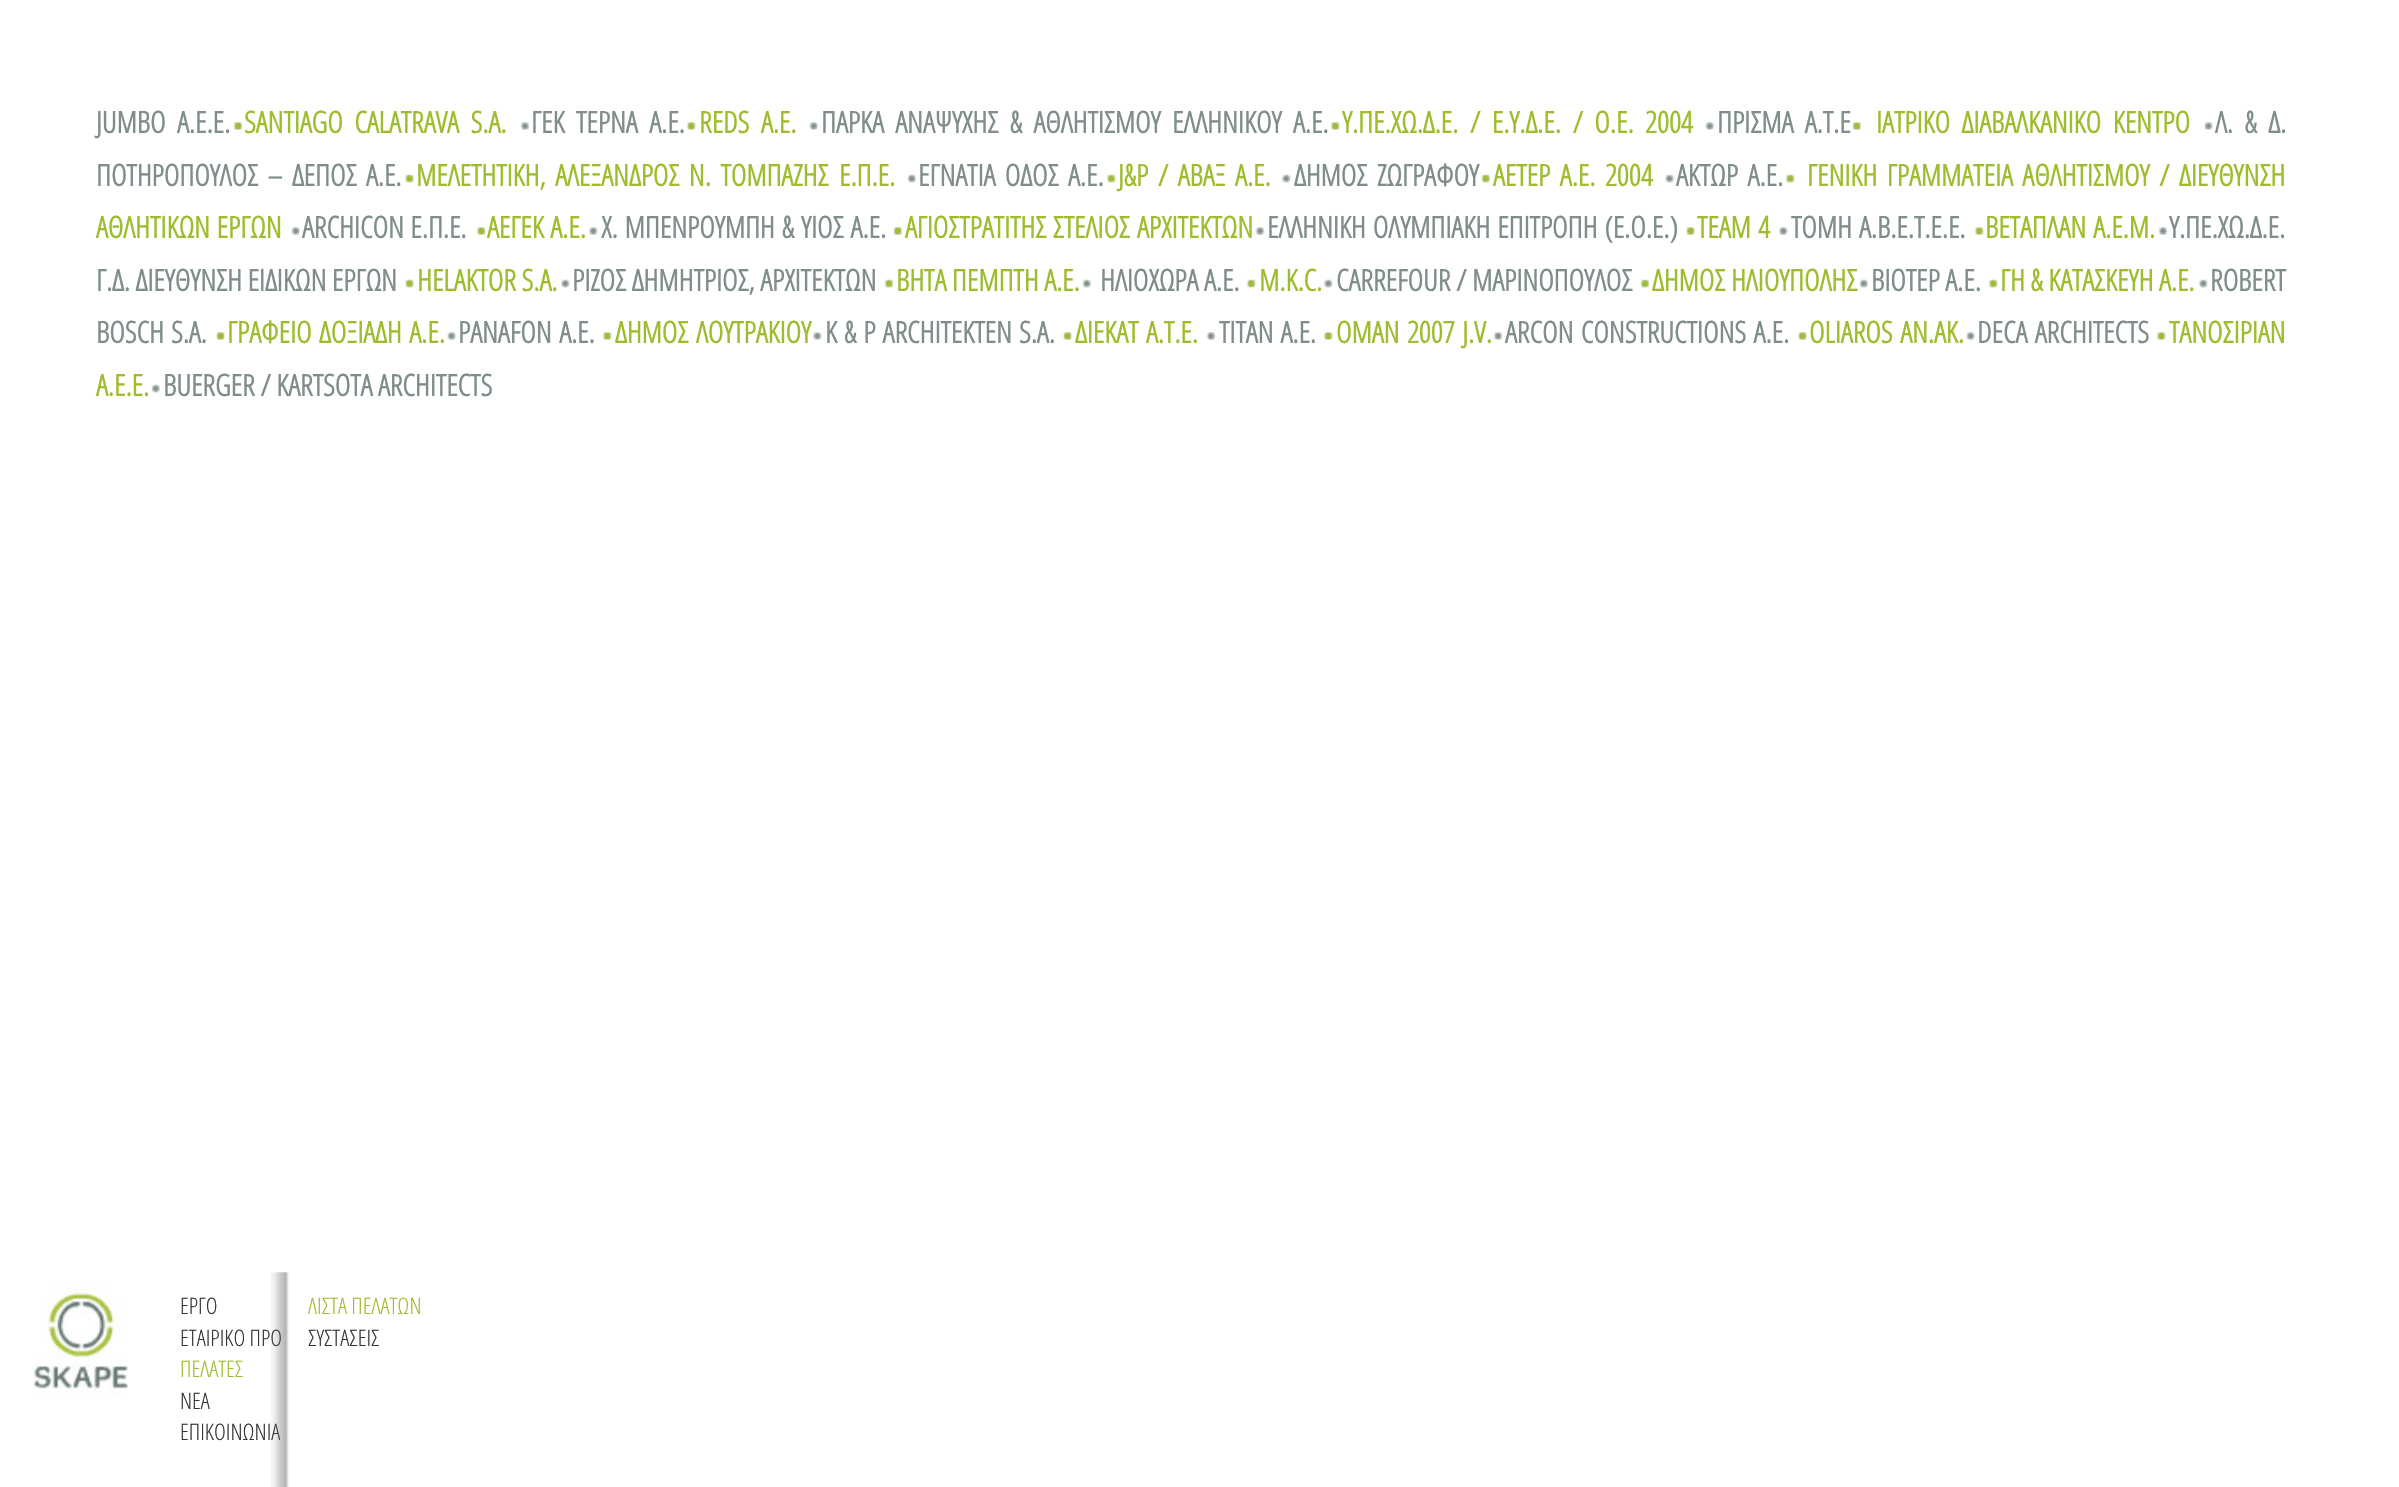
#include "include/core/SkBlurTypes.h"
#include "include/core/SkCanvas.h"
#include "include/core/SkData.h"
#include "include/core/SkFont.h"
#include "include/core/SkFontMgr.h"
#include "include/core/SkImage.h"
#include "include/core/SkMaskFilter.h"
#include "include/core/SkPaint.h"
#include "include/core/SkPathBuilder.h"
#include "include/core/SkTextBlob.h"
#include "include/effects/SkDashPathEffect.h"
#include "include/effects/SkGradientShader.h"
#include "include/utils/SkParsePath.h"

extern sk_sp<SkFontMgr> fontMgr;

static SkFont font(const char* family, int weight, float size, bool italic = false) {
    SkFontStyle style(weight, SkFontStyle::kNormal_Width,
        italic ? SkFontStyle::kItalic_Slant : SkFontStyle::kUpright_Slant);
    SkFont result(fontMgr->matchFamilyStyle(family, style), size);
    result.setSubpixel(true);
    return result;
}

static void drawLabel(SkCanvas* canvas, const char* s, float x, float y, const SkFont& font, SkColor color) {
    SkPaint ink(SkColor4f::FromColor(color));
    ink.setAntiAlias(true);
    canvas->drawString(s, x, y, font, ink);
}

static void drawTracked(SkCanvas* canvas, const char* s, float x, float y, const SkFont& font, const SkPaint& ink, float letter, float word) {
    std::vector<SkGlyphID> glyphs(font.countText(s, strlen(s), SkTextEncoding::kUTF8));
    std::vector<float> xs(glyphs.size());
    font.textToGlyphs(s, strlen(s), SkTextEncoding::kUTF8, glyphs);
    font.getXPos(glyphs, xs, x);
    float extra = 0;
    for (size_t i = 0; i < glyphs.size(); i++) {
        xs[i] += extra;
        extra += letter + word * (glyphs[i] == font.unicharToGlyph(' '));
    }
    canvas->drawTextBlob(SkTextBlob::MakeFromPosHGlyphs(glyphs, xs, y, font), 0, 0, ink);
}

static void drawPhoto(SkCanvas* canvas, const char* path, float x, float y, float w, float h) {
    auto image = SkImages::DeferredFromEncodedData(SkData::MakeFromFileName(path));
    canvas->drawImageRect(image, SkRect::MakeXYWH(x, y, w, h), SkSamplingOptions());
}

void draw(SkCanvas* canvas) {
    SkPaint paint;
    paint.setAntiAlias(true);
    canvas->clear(0xFFFFFFFF);
    SkFont font1 = font("Open Sans Condensed", 700, 29.75f);
    paint.setColor(0xFF808E8A);
    drawTracked(canvas, "JUMBO A.E.E.", 96, 133, font1, paint, 0, 6);
    drawPhoto(canvas, "assets/img1.png", 233, 122, 10, 8);
    paint.setColor(0xFF9EBD2E);
    drawTracked(canvas, "SANTIAGO CALATRAVA S.A.", 244, 133, font1, paint, 0, 6);
    drawPhoto(canvas, "assets/img2.png", 520, 122, 10, 8);
    paint.setColor(0xFF808E8A);
    drawTracked(canvas, "ΓΕΚ ΤΕΡΝΑ Α.Ε.", 531, 133, font1, paint, 0, 6);
    drawPhoto(canvas, "assets/img3.png", 686, 122, 10, 8);
    paint.setColor(0xFF9EBD2E);
    drawTracked(canvas, "REDS A.E.", 699, 133, font1, paint, 0, 6);
    drawPhoto(canvas, "assets/img4.png", 809, 122, 9, 8);
    paint.setColor(0xFF808E8A);
    drawTracked(canvas, "ΠΑΡΚΑ ΑΝΑΨΥΧΗΣ & ΑΘΛΗΤΙΣΜΟΥ ΕΛΛΗΝΙΚΟΥ Α.Ε.", 821, 133, font1, paint, 0, 6);
    drawPhoto(canvas, "assets/img3.png", 1330, 122, 10, 8);
    paint.setColor(0xFF9EBD2E);
    drawTracked(canvas, "Υ.ΠΕ.ΧΩ.Δ.Ε. / Ε.Υ.Δ.Ε. / Ο.Ε. 2004", 1342, 133, font1, paint, 0, 6);
    drawPhoto(canvas, "assets/img5.png", 1705, 122, 9, 8);
    paint.setColor(0xFF808E8A);
    drawTracked(canvas, "ΠΡΙΣΜΑ Α.Τ.Ε", 1717, 133, font1, paint, 0, 6);
    drawPhoto(canvas, "assets/img6.png", 1852, 122, 9, 8);
    paint.setColor(0xFF9EBD2E);
    drawTracked(canvas, "ΙΑΤΡΙΚΟ ΔΙΑΒΑΛΚΑΝΙΚΟ ΚΕΝΤΡΟ", 1876, 133, font1, paint, 0, 6);
    drawPhoto(canvas, "assets/img7.png", 2204, 122, 9, 8);
    paint.setColor(0xFF808E8A);
    drawTracked(canvas, "Λ. & Δ.", 2215, 133, font1, paint, 0, 6);
    drawTracked(canvas, "ΠΟΤΗΡΟΠΟΥΛΟΣ – ΔΕΠΟΣ Α.Ε.", 96, 186, font1, paint, 0, 4);
    drawPhoto(canvas, "assets/img8.png", 405, 174, 9, 9);
    paint.setColor(0xFF9EBD2E);
    drawTracked(canvas, "ΜΕΛΕΤΗΤΙΚΗ, ΑΛΕΞΑΝΔΡΟΣ Ν. ΤΟΜΠΑΖΗΣ", 416, 186, font1, paint, 0, 4);
    drawLabel(canvas, "Ε.Π.Ε.", 839, 186, font1, 0xFF9EBD2E);
    drawPhoto(canvas, "assets/img9.png", 907, 174, 9, 9);
    paint.setColor(0xFF808E8A);
    drawTracked(canvas, "ΕΓΝΑΤΙΑ ΟΔΟΣ Α.Ε.", 918, 186, font1, paint, 0, 4);
    drawPhoto(canvas, "assets/img10.png", 1106, 174, 10, 9);
    paint.setColor(0xFF9EBD2E);
    drawTracked(canvas, "J&P / ΑΒΑΞ Α.Ε.", 1118, 186, font1, paint, 0, 4);
    drawPhoto(canvas, "assets/img11.png", 1281, 174, 10, 9);
    paint.setColor(0xFF808E8A);
    drawTracked(canvas, "ΔΗΜΟΣ ΖΩΓΡΑΦΟΥ", 1294, 186, font1, paint, 0, 4);
    drawPhoto(canvas, "assets/img12.png", 1481, 174, 9, 9);
    paint.setColor(0xFF9EBD2E);
    drawTracked(canvas, "ΑΕΤΕΡ Α.Ε. 2004", 1493, 186, font1, paint, 0, 4);
    drawPhoto(canvas, "assets/img13.png", 1665, 174, 9, 9);
    paint.setColor(0xFF808E8A);
    drawTracked(canvas, "ΑΚΤΩΡ Α.Ε.", 1676, 186, font1, paint, 0, 4);
    drawPhoto(canvas, "assets/img10.png", 1785, 174, 10, 9);
    paint.setColor(0xFF9EBD2E);
    drawTracked(canvas, "ΓΕΝΙΚΗ ΓΡΑΜΜΑΤΕΙΑ ΑΘΛΗΤΙΣΜΟΥ / ΔΙΕΥΘΥΝΣΗ", 1807, 186, font1, paint, 0, 4);
    drawTracked(canvas, "ΑΘΛΗΤΙΚΩΝ ΕΡΓΩΝ", 96, 238, font1, paint, 0, 1);
    drawPhoto(canvas, "assets/img14.png", 291, 227, 9, 8);
    paint.setColor(0xFF808E8A);
    drawTracked(canvas, "ARCHICON Ε.Π.Ε.", 302, 238, font1, paint, 0, 1);
    drawPhoto(canvas, "assets/img15.png", 476, 227, 10, 8);
    paint.setColor(0xFF9EBD2E);
    drawTracked(canvas, "AEΓΕΚ Α.Ε.", 487, 238, font1, paint, 0, 1);
    drawPhoto(canvas, "assets/img16.png", 588, 227, 10, 8);
    paint.setColor(0xFF808E8A);
    drawTracked(canvas, "Χ. ΜΠΕΝΡΟΥΜΠΗ & ΥΙΟΣ Α.Ε.", 601, 238, font1, paint, 0, 1.5f);
    drawPhoto(canvas, "assets/img17.png", 893, 227, 9, 8);
    paint.setColor(0xFF9EBD2E);
    drawTracked(canvas, "ΑΓΙΟΣΤΡΑΤΙΤΗΣ ΣΤΕΛΙΟΣ", 905, 238, font1, paint, 0, 1);
    drawLabel(canvas, "ΑΡΧΙΤΕΚΤΩΝ", 1137, 238, font1, 0xFF9EBD2E);
    drawPhoto(canvas, "assets/img18.png", 1255, 227, 10, 8);
    paint.setColor(0xFF808E8A);
    drawTracked(canvas, "ΕΛΛΗΝΙΚΗ ΟΛΥΜΠΙΑΚΗ ΕΠΙΤΡΟΠΗ (Ε.Ο.Ε.)", 1267, 238, font1, paint, 0, 1.5f);
    drawPhoto(canvas, "assets/img19.png", 1686, 227, 9, 8);
    paint.setColor(0xFF9EBD2E);
    drawTracked(canvas, "ΤΕΑΜ 4", 1697, 238, font1, paint, 0, 1.5f);
    drawPhoto(canvas, "assets/img16.png", 1778, 227, 10, 8);
    paint.setColor(0xFF808E8A);
    drawTracked(canvas, "ΤΟΜΗ Α.Β.Ε.Τ.Ε.Ε.", 1791, 238, font1, paint, 0, 1.5f);
    drawPhoto(canvas, "assets/img15.png", 1974, 227, 10, 8);
    paint.setColor(0xFF9EBD2E);
    drawTracked(canvas, "ΒΕΤΑΠΛΑΝ Α.Ε.Μ.", 1985, 238, font1, paint, 0, 1.5f);
    drawPhoto(canvas, "assets/img18.png", 2158, 227, 10, 8);
    drawLabel(canvas, "Υ.ΠΕ.ΧΩ.Δ.Ε.", 2169, 238, font1, 0xFF808E8A);
    drawLabel(canvas, "Γ.Δ. ΔΙΕΥΘΥΝΣΗ ΕΙΔΙΚΩΝ ΕΡΓΩΝ", 96, 291, font1, 0xFF808E8A);
    drawPhoto(canvas, "assets/img8.png", 405, 279, 9, 9);
    drawLabel(canvas, "HELAKTOR S.A.", 417, 291, font1, 0xFF9EBD2E);
    drawPhoto(canvas, "assets/img11.png", 560, 279, 10, 9);
    drawLabel(canvas, "ΡΙΖΟΣ ΔΗΜΗΤΡΙΟΣ, ΑΡΧΙΤΕΚΤΩΝ", 572, 291, font1, 0xFF808E8A);
    drawPhoto(canvas, "assets/img20.png", 884, 279, 10, 9);
    drawLabel(canvas, "ΒΗΤΑ ΠΕΜΠΤΗ Α.Ε.", 896, 291, font1, 0xFF9EBD2E);
    drawPhoto(canvas, "assets/img21.png", 1082, 279, 9, 9);
    drawLabel(canvas, "ΗΛΙΟΧΩΡΑ Α.Ε.", 1100, 291, font1, 0xFF808E8A);
    drawPhoto(canvas, "assets/img10.png", 1246, 279, 10, 9);
    drawLabel(canvas, "M.K.C.", 1259, 291, font1, 0xFF9EBD2E);
    drawPhoto(canvas, "assets/img11.png", 1323, 279, 10, 9);
    drawLabel(canvas, "CARREFOUR / ΜΑΡΙΝΟΠΟΥΛΟΣ", 1336, 291, font1, 0xFF808E8A);
    drawPhoto(canvas, "assets/img22.png", 1640, 279, 10, 9);
    drawLabel(canvas, "ΔΗΜΟΣ ΗΛΙΟΥΠΟΛΗΣ", 1652, 291, font1, 0xFF9EBD2E);
    drawPhoto(canvas, "assets/img21.png", 1859, 279, 9, 9);
    drawLabel(canvas, "ΒΙΟΤΕΡ Α.Ε.", 1871, 291, font1, 0xFF808E8A);
    drawPhoto(canvas, "assets/img10.png", 1988, 279, 10, 9);
    drawLabel(canvas, "ΓΗ & ΚΑΤΑΣΚΕΥΗ Α.Ε.", 2000, 291, font1, 0xFF9EBD2E);
    drawPhoto(canvas, "assets/img11.png", 2198, 279, 10, 9);
    drawLabel(canvas, "ROBERT", 2210, 291, font1, 0xFF808E8A);
    paint.setColor(0xFF808E8A);
    drawTracked(canvas, "BOSCH S.A.", 96, 343, font1, paint, 0, 1.5f);
    drawPhoto(canvas, "assets/img23.png", 216, 332, 9, 8);
    paint.setColor(0xFF9EBD2E);
    drawTracked(canvas, "ΓΡΑΦΕΙΟ ΔΟΞΙΑΔΗ Α.Ε.", 227, 343, font1, paint, 0, 2);
    drawPhoto(canvas, "assets/img7.png", 447, 332, 9, 8);
    paint.setColor(0xFF808E8A);
    drawTracked(canvas, "PANAFON Α.Ε.", 458, 343, font1, paint, 0, 2);
    drawPhoto(canvas, "assets/img3.png", 602, 332, 10, 8);
    paint.setColor(0xFF9EBD2E);
    drawTracked(canvas, "ΔΗΜΟΣ ΛΟΥΤΡΑΚΙΟΥ", 615, 343, font1, paint, 0, 2);
    drawPhoto(canvas, "assets/img24.png", 812, 332, 10, 8);
    paint.setColor(0xFF808E8A);
    drawTracked(canvas, "K & P ARCHITEKTEN S.A.", 825, 343, font1, paint, 0, 1.5f);
    drawPhoto(canvas, "assets/img23.png", 1063, 332, 9, 8);
    paint.setColor(0xFF9EBD2E);
    drawTracked(canvas, "ΔΙΕΚΑΤ Α.Τ.Ε.", 1075, 343, font1, paint, 0, 2);
    drawPhoto(canvas, "assets/img2.png", 1206, 332, 10, 8);
    paint.setColor(0xFF808E8A);
    drawTracked(canvas, "ΤΙΤΑΝ Α.Ε.", 1219, 343, font1, paint, 0, 1.5f);
    drawPhoto(canvas, "assets/img3.png", 1323, 332, 10, 8);
    paint.setColor(0xFF9EBD2E);
    drawTracked(canvas, "OMAN 2007 J.V.", 1336, 343, font1, paint, 0, 2);
    drawPhoto(canvas, "assets/img25.png", 1493, 332, 10, 8);
    paint.setColor(0xFF808E8A);
    drawTracked(canvas, "ARCON CONSTRUCTIONS Α.Ε.", 1505, 343, font1, paint, 0, 2);
    drawPhoto(canvas, "assets/img23.png", 1798, 332, 9, 8);
    paint.setColor(0xFF9EBD2E);
    drawTracked(canvas, "OLIAROS AN.AK.", 1809, 343, font1, paint, 0, 2);
    drawPhoto(canvas, "assets/img7.png", 1966, 332, 9, 8);
    paint.setColor(0xFF808E8A);
    drawTracked(canvas, "DECA ARCHITECTS", 1977, 343, font1, paint, 0, 2);
    drawPhoto(canvas, "assets/img3.png", 2156, 332, 10, 8);
    drawLabel(canvas, "ΤΑΝΟΣΙΡΙΑΝ", 2169, 343, font1, 0xFF9EBD2E);
    drawLabel(canvas, "Α.Ε.Ε.", 96, 396, font1, 0xFF9EBD2E);
    drawPhoto(canvas, "assets/img26.png", 151, 384, 9, 9);
    drawLabel(canvas, "BUERGER / KARTSOTA ARCHITECTS", 163, 396, font1, 0xFF808E8A);
    drawPhoto(canvas, "assets/img27.png", 33, 1286, 95, 112);
    SkFont font2 = font("Open Sans Condensed", 300, 22.75f);
    drawLabel(canvas, "EΡΓΟ", 180, 1314, font2, 0xFF333333);
    drawLabel(canvas, "ETAIΡIKO ΠΡΟ", 180, 1346, font2, 0xFF333333);
    drawLabel(canvas, "ΠΕΛΑΤΕΣ", 180, 1377, font2, 0xFF9EBD2E);
    drawLabel(canvas, "ΝΕΑ", 180, 1409, font2, 0xFF333333);
    drawLabel(canvas, "EΠΙΚΟΙΝΩΝΙΑ", 180, 1440, font2, 0xFF333333);
    drawPhoto(canvas, "assets/img28.png", 270, 1272, 40, 215);
    drawLabel(canvas, "ΛΙΣΤΑ ΠΕΛΑΤΩΝ", 308, 1314, font2, 0xFF9EBD2E);
    drawLabel(canvas, "ΣΥΣΤΑΣΕΙΣ", 308, 1346, font2, 0xFF333333);
}
